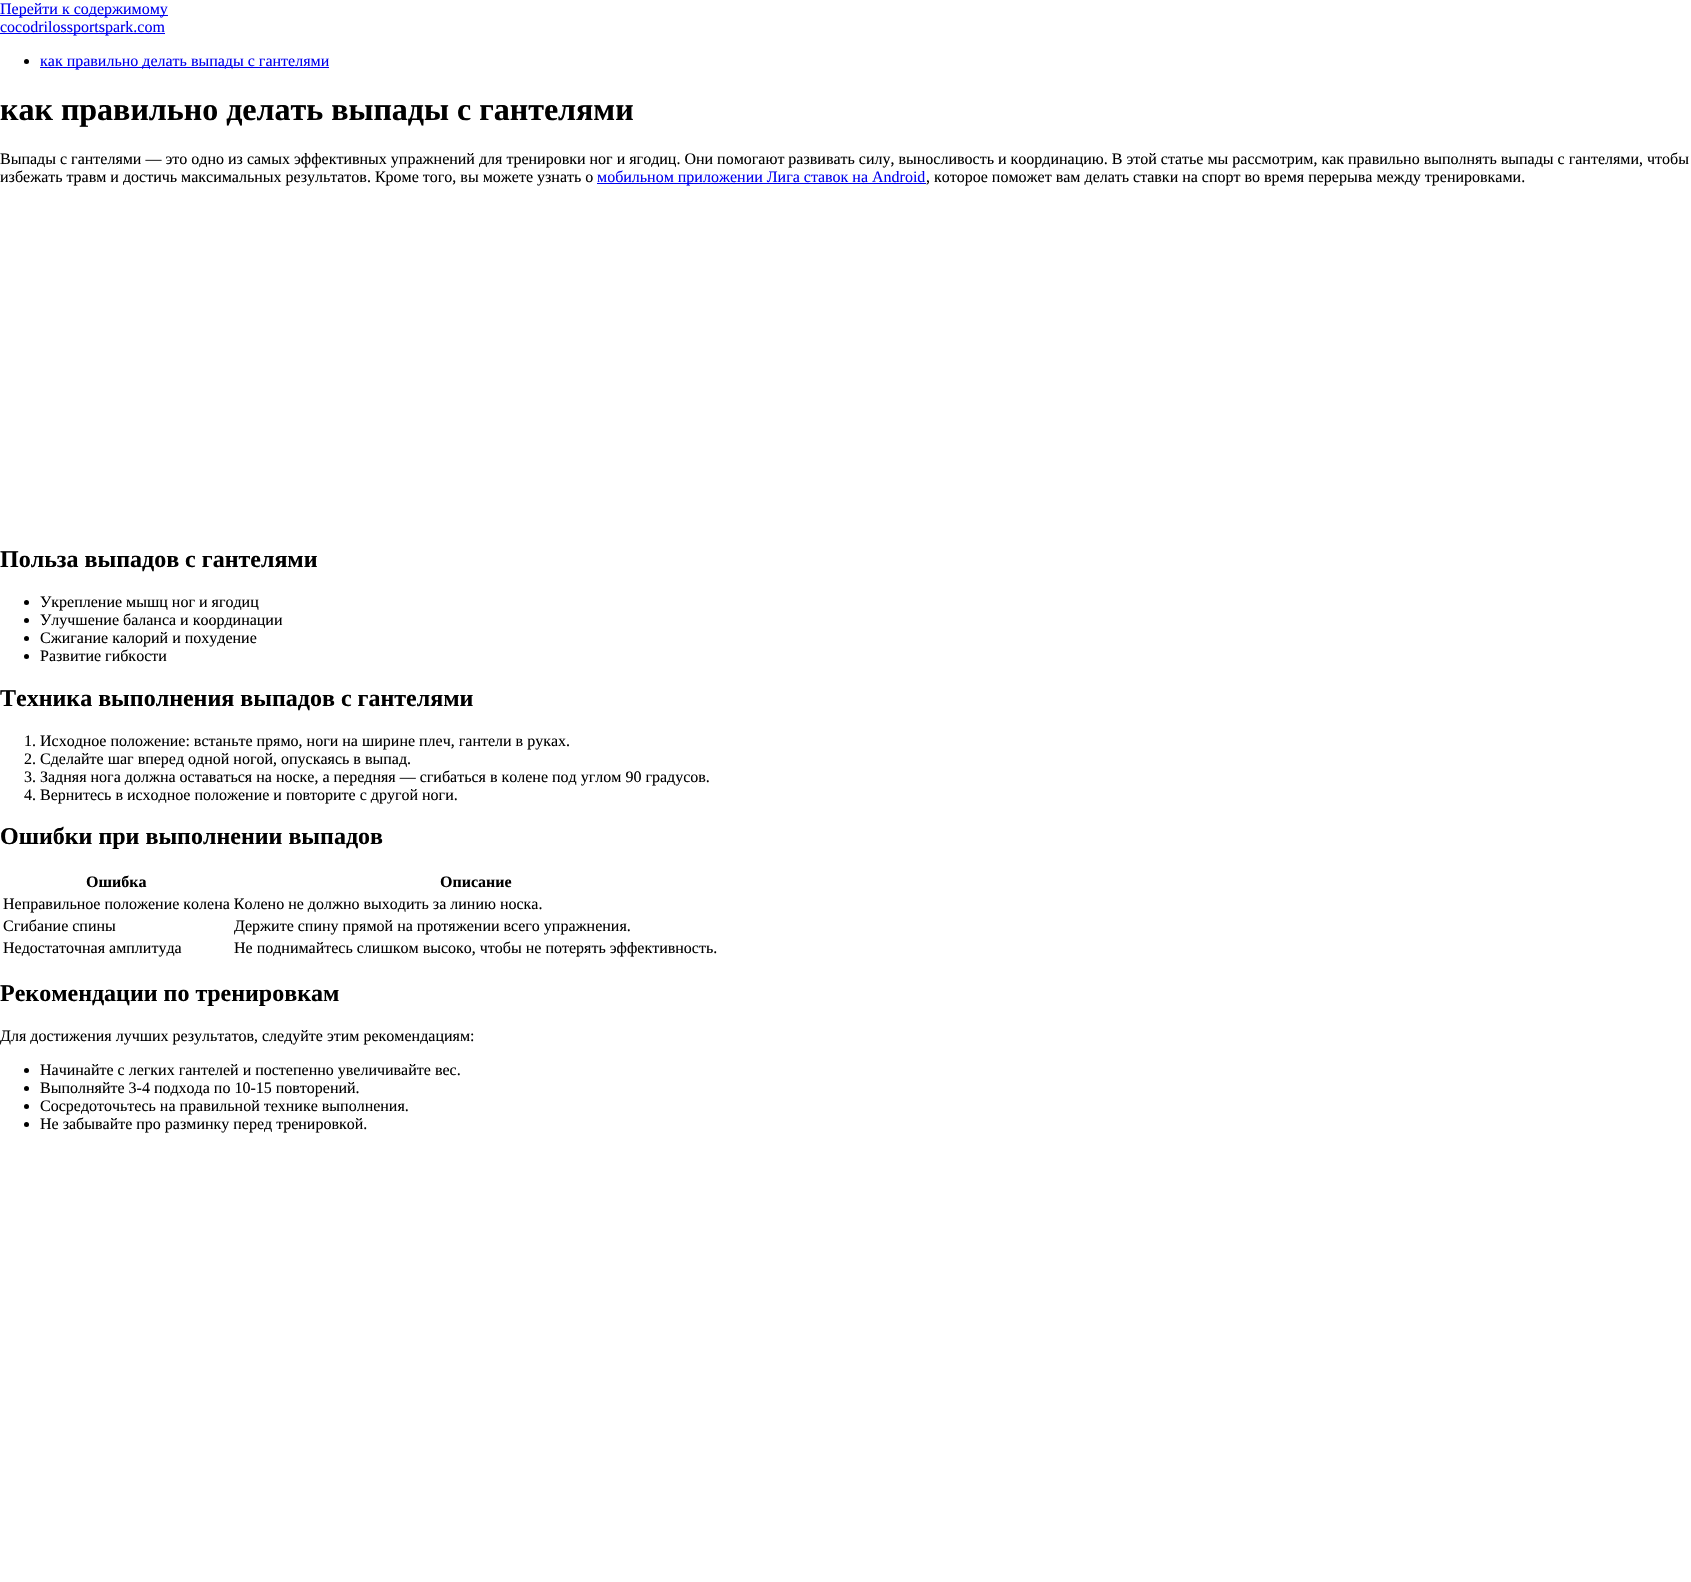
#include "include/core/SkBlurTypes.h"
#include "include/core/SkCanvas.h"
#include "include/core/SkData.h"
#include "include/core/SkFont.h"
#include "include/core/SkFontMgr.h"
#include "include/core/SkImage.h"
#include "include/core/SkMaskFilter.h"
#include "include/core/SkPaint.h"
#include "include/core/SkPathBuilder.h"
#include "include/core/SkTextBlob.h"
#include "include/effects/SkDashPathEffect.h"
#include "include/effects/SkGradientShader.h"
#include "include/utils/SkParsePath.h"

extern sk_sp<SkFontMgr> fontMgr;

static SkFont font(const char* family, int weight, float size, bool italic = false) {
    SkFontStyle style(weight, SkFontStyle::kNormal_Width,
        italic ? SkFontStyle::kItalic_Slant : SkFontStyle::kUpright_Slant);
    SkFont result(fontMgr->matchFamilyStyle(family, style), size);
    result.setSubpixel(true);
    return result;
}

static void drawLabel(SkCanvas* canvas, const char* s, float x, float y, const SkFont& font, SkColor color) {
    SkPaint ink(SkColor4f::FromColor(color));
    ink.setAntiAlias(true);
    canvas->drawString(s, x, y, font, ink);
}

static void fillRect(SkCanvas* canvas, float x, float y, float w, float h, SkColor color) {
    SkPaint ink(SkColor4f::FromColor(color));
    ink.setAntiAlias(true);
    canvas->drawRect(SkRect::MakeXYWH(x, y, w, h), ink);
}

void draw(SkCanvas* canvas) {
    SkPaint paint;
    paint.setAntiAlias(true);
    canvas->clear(0xFFFFFFFF);
    fillRect(canvas, 0, 15, 168, 1, 0xFF0000EE);
    SkFont font1 = font("Liberation Serif", 400, 16);
    drawLabel(canvas, "Перейти к содержимому", 0, 14, font1, 0xFF0000EE);
    fillRect(canvas, 0, 33, 165, 1, 0xFF0000EE);
    drawLabel(canvas, "cocodrilossportspark.com", 0, 32, font1, 0xFF0000EE);
    paint.setColor(0xFF000000);
    canvas->drawCircle(26.5f, 61.5f, 2.5f, paint);
    fillRect(canvas, 40, 67, 289, 1, 0xFF0000EE);
    drawLabel(canvas, "как правильно делать выпады с гантелями", 40, 66, font1, 0xFF0000EE);
    SkFont font2 = font("Liberation Serif", 700, 32);
    drawLabel(canvas, "как правильно делать выпады с гантелями", 0, 120, font2, 0xFF000000);
    drawLabel(canvas, "Выпады с гантелями — это одно из самых эффективных упражнений для тренировки ног и ягодиц. Они помогают развивать силу, выносливость и координацию. В этой статье мы рассмотрим, как правильно выполнять выпады с гантелями, чтобы", 0, 164, font1, 0xFF000000);
    drawLabel(canvas, "избежать травм и достичь максимальных результатов. Кроме того, вы можете узнать о", 0, 182, font1, 0xFF000000);
    fillRect(canvas, 597, 183, 329, 1, 0xFF0000EE);
    drawLabel(canvas, "мобильном приложении Лига ставок на Android", 597, 182, font1, 0xFF0000EE);
    drawLabel(canvas, ", которое поможет вам делать ставки на спорт во время перерыва между тренировками.", 926, 182, font1, 0xFF000000);
    SkFont font3 = font("Liberation Serif", 700, 24);
    drawLabel(canvas, "Польза выпадов с гантелями", 0, 567, font3, 0xFF000000);
    canvas->drawCircle(26.5f, 602.5f, 2.5f, paint);
    drawLabel(canvas, "Укрепление мышц ног и ягодиц", 40, 607, font1, 0xFF000000);
    canvas->drawCircle(26.5f, 620.5f, 2.5f, paint);
    drawLabel(canvas, "Улучшение баланса и координации", 40, 625, font1, 0xFF000000);
    canvas->drawCircle(26.5f, 638.5f, 2.5f, paint);
    drawLabel(canvas, "Сжигание калорий и похудение", 40, 643, font1, 0xFF000000);
    canvas->drawCircle(26.5f, 656.5f, 2.5f, paint);
    drawLabel(canvas, "Развитие гибкости", 40, 661, font1, 0xFF000000);
    drawLabel(canvas, "Техника выполнения выпадов с гантелями", 0, 706, font3, 0xFF000000);
    drawLabel(canvas, "1. Исходное положение: встаньте прямо, ноги на ширине плеч, гантели в руках.", 24, 746, font1, 0xFF000000);
    drawLabel(canvas, "2. Сделайте шаг вперед одной ногой, опускаясь в выпад.", 24, 764, font1, 0xFF000000);
    drawLabel(canvas, "3. Задняя нога должна оставаться на носке, а передняя — сгибаться в колене под углом 90 градусов.", 24, 782, font1, 0xFF000000);
    drawLabel(canvas, "4. Вернитесь в исходное положение и повторите с другой ноги.", 24, 800, font1, 0xFF000000);
    drawLabel(canvas, "Ошибки при выполнении выпадов", 0, 844, font3, 0xFF000000);
    SkFont font4 = font("Liberation Serif", 700, 16);
    drawLabel(canvas, "Ошибка", 86, 887, font4, 0xFF000000);
    drawLabel(canvas, "Описание", 440, 887, font4, 0xFF000000);
    drawLabel(canvas, "Неправильное положение колена Колено не должно выходить за линию носка.", 3, 909, font1, 0xFF000000);
    drawLabel(canvas, "Сгибание спины", 3, 931, font1, 0xFF000000);
    drawLabel(canvas, "Держите спину прямой на протяжении всего упражнения.", 234, 931, font1, 0xFF000000);
    drawLabel(canvas, "Недостаточная амплитуда", 3, 953, font1, 0xFF000000);
    drawLabel(canvas, "Не поднимайтесь слишком высоко, чтобы не потерять эффективность.", 234, 953, font1, 0xFF000000);
    drawLabel(canvas, "Рекомендации по тренировкам", 0, 1001, font3, 0xFF000000);
    drawLabel(canvas, "Для достижения лучших результатов, следуйте этим рекомендациям:", 0, 1041, font1, 0xFF000000);
    canvas->drawCircle(26.5f, 1070.5f, 2.5f, paint);
    drawLabel(canvas, "Начинайте с легких гантелей и постепенно увеличивайте вес.", 40, 1075, font1, 0xFF000000);
    canvas->drawCircle(26.5f, 1088.5f, 2.5f, paint);
    drawLabel(canvas, "Выполняйте 3-4 подхода по 10-15 повторений.", 40, 1093, font1, 0xFF000000);
    canvas->drawCircle(26.5f, 1106.5f, 2.5f, paint);
    drawLabel(canvas, "Сосредоточьтесь на правильной технике выполнения.", 40, 1111, font1, 0xFF000000);
    canvas->drawCircle(26.5f, 1124.5f, 2.5f, paint);
    drawLabel(canvas, "Не забывайте про разминку перед тренировкой.", 40, 1129, font1, 0xFF000000);
}
